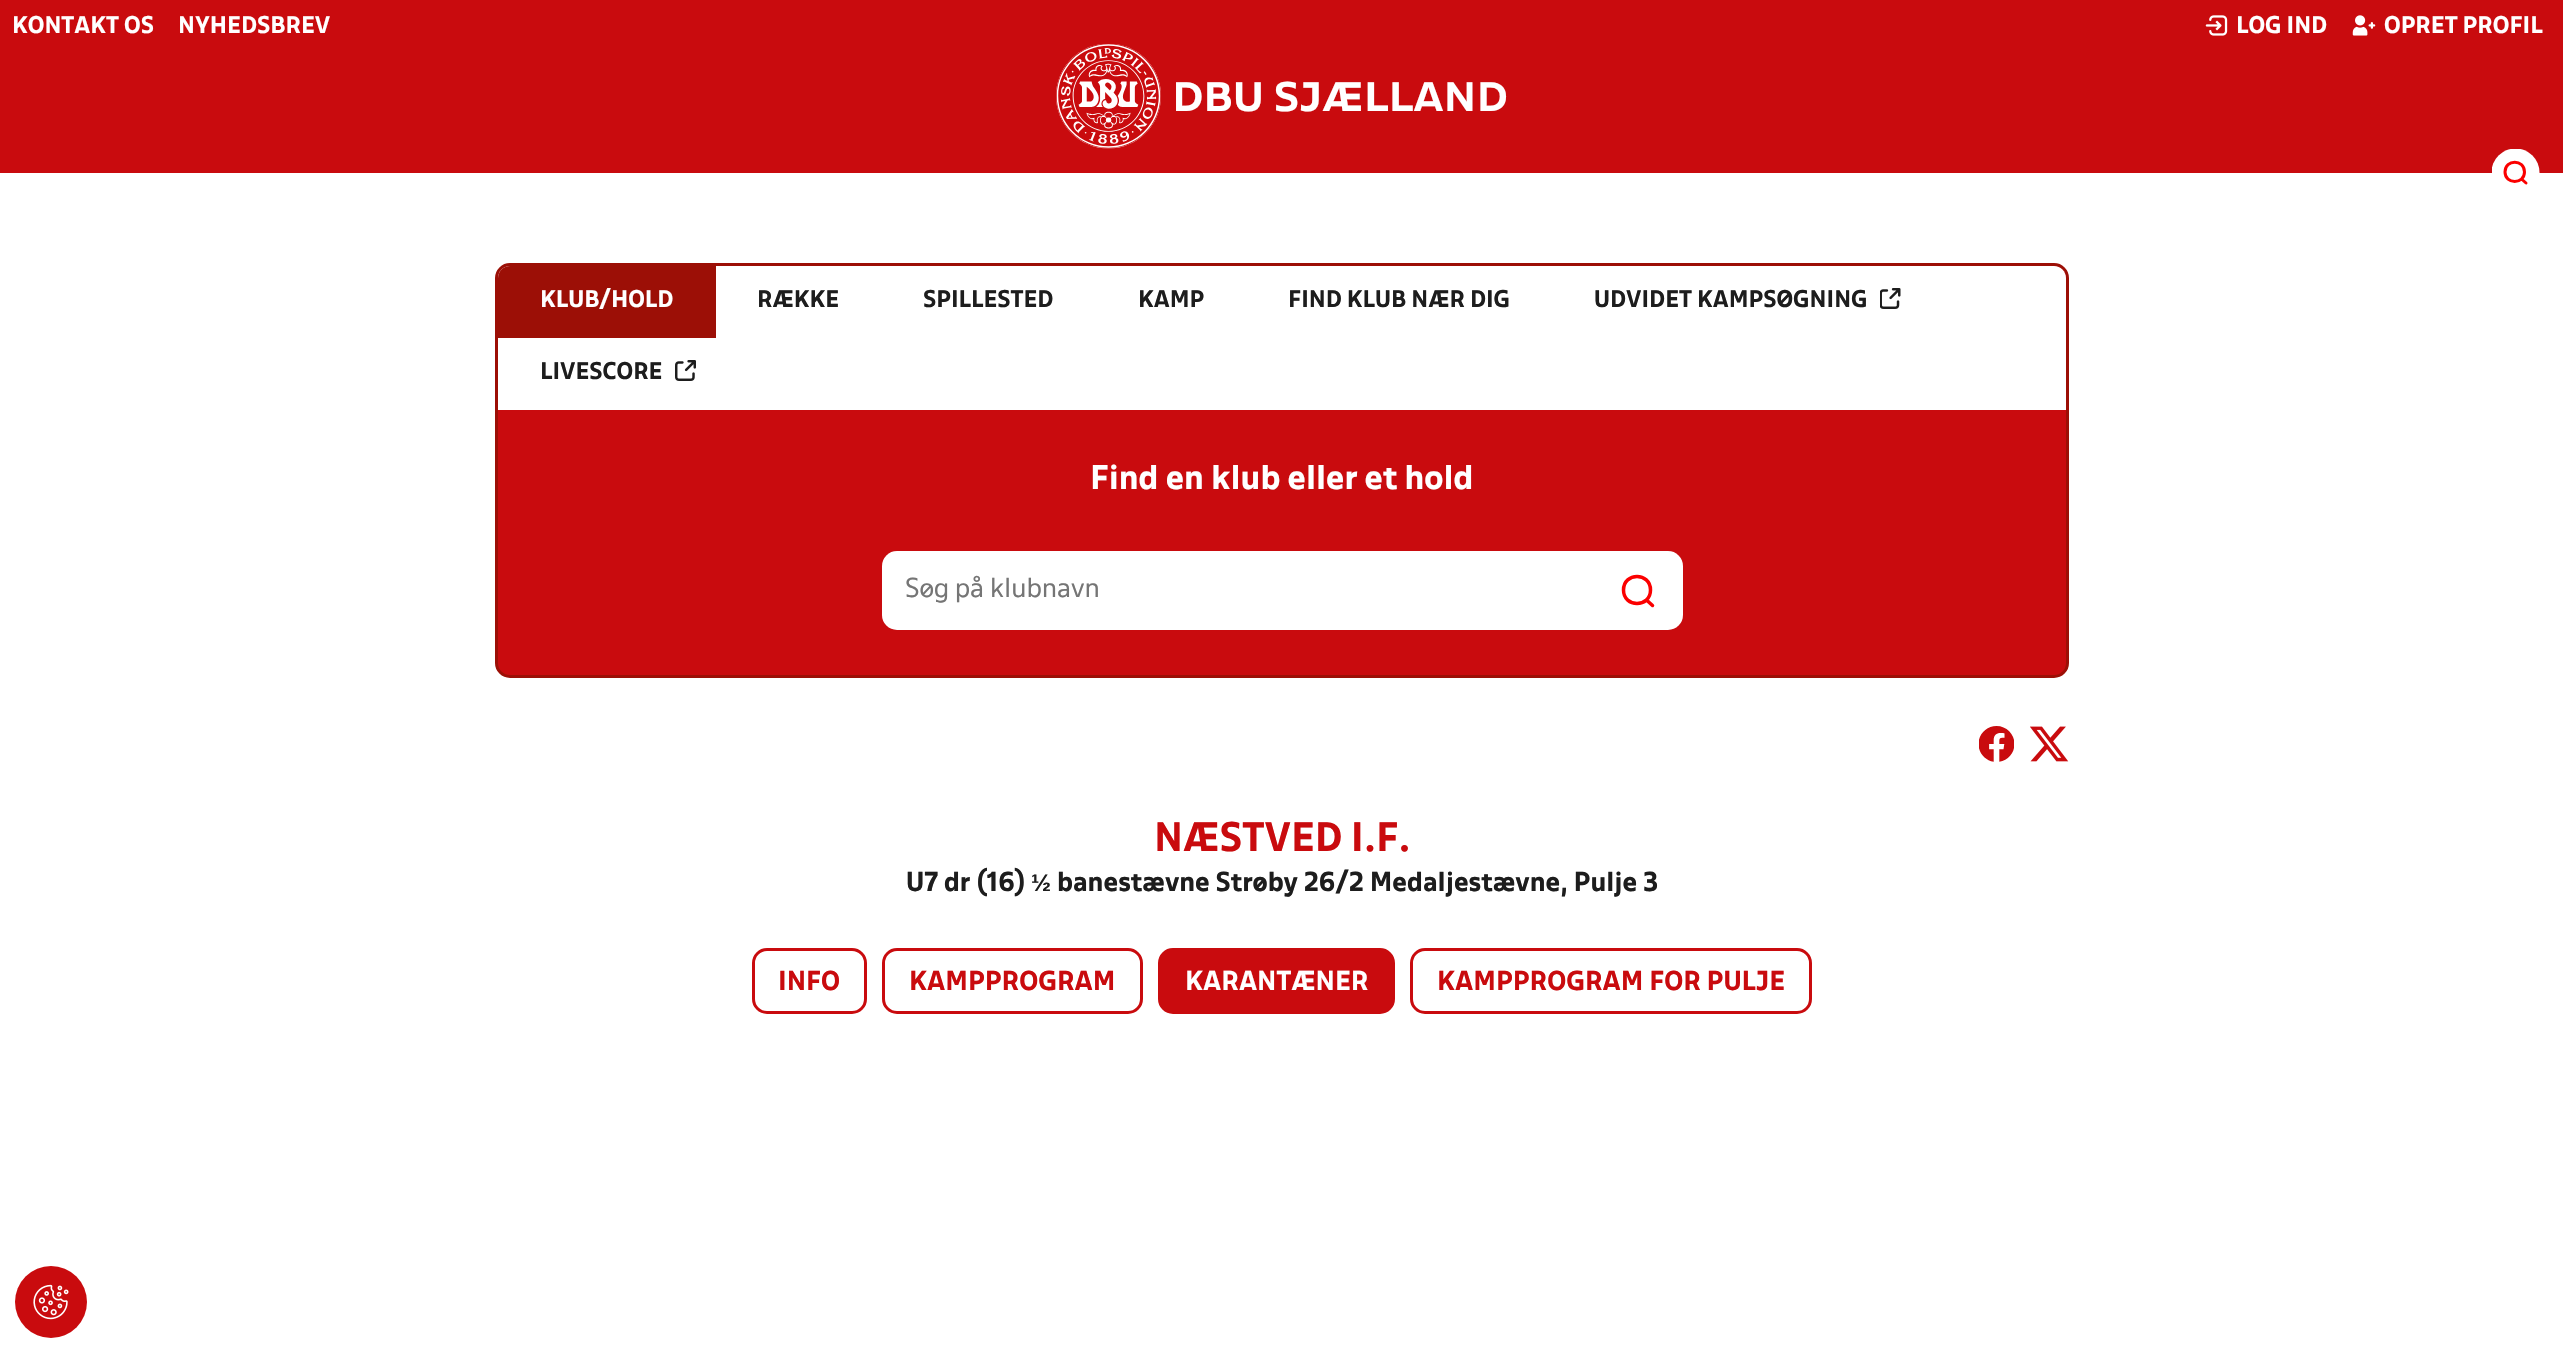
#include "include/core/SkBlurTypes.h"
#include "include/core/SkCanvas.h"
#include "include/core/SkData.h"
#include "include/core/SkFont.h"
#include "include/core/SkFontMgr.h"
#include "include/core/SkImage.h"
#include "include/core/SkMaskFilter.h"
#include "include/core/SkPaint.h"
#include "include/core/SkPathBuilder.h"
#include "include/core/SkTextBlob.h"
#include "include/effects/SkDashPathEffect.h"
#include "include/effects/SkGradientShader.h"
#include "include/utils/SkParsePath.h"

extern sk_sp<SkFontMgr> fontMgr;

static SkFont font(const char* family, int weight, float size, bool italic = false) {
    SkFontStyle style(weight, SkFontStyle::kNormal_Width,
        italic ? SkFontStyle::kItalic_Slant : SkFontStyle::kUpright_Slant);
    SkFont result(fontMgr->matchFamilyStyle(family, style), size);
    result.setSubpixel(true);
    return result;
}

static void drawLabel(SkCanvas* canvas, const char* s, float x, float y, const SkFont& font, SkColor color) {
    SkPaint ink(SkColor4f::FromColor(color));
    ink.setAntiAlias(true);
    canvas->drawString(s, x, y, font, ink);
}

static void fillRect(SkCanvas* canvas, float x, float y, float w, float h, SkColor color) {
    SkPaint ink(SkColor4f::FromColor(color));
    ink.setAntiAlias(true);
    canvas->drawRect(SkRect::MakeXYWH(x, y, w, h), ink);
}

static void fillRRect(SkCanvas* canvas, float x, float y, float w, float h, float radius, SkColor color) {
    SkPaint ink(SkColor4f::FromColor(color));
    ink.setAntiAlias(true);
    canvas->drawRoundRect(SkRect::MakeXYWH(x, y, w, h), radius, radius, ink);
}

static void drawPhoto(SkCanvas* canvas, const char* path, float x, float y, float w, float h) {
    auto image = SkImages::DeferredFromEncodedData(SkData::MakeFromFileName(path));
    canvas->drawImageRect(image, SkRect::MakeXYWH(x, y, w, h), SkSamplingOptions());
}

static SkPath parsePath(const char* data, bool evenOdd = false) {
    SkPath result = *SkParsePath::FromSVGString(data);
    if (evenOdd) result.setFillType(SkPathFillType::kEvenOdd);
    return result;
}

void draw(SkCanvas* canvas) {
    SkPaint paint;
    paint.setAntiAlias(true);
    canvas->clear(0xFFFFFFFF);
    fillRect(canvas, 0, 0, 2563, 173, 0xFFC90B0E);
    SkFont font1 = font("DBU", 700, 21);
    drawLabel(canvas, "KONTAKT OS", 12, 33, font1, 0xFFFFFFFF);
    drawLabel(canvas, "NYHEDSBREV", 178, 33, font1, 0xFFFFFFFF);
    drawPhoto(canvas, "assets/img1.png", 2205, 15, 23, 21);
    drawLabel(canvas, "LOG IND", 2236, 33, font1, 0xFFFFFFFF);
    drawPhoto(canvas, "assets/img2.png", 2352, 15, 24, 21);
    drawLabel(canvas, "OPRET PROFIL", 2384, 33, font1, 0xFFFFFFFF);
    drawPhoto(canvas, "assets/img3.png", 1056, 44, 105, 105);
    SkFont font2 = font("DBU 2", 700, 36);
    drawLabel(canvas, "DBU SJÆLLAND", 1172, 111, font2, 0xFFFFFFFF);
    canvas->save();
    canvas->clipRect(SkRect::MakeXYWH(2492, 149, 48, 48));
    paint.setColor(0xFFFFFFFF);
    canvas->drawCircle(2515.5f, 172.5f, 24, paint);
    canvas->restore();
    paint.setStroke(true);
    paint.setStrokeWidth(3);
    paint.setStrokeCap(SkPaint::kRound_Cap);
    paint.setColor(0xFFFB0000);
    canvas->drawPath(parsePath("M2521.5 179L2526 183M2524.5 172C2524.5 184.5 2505 184.5 2505 172C2505 159 2524.5 159 2524.5 172Z"), paint);
    paint.setStroke(false);
    paint.setColor(0xFFC90B0E);
    canvas->drawRoundRect(SkRect::MakeXYWH(496.5f, 264.5f, 1571, 412), 13.5f, 13.5f, paint);
    paint.setStroke(true);
    paint.setStrokeCap(SkPaint::kButt_Cap);
    paint.setColor(0xFF9C0F06);
    canvas->drawRoundRect(SkRect::MakeXYWH(496.5f, 264.5f, 1571, 412), 13.5f, 13.5f, paint);
    paint.setStroke(false);
    paint.setColor(0xFFFFFFFF);
    canvas->drawPath(parsePath("M510 266H2054C2060.5 266 2066 271.5 2066 278V410H498V278C498 271.5 503.5 266 510 266Z"), paint);
    paint.setColor(0xFF9C0F06);
    canvas->drawPath(parsePath("M510 266H716V338H498V278C498 271.5 503.5 266 510 266Z"), paint);
    drawLabel(canvas, "KLUB/HOLD", 540, 307, font1, 0xFFFFFFFF);
    drawLabel(canvas, "RÆKKE", 757, 307, font1, 0xFF1D1D1D);
    drawLabel(canvas, "SPILLESTED", 923, 307, font1, 0xFF1D1D1D);
    drawLabel(canvas, "KAMP", 1138, 307, font1, 0xFF1D1D1D);
    drawLabel(canvas, "FIND KLUB NÆR DIG", 1288, 307, font1, 0xFF1D1D1D);
    drawLabel(canvas, "UDVIDET KAMPSØGNING", 1594, 307, font1, 0xFF1D1D1D);
    drawPhoto(canvas, "assets/img4.png", 1880, 288, 21, 21);
    drawLabel(canvas, "LIVESCORE", 540, 379, font1, 0xFF1D1D1D);
    drawPhoto(canvas, "assets/img5.png", 675, 360, 21, 21);
    SkFont font3 = font("DBU", 700, 30);
    drawLabel(canvas, "Find en klub eller et hold", 1090, 489, font3, 0xFFFFFFFF);
    fillRRect(canvas, 882, 551, 801, 79, 15, 0xFFFFFFFF);
    SkFont font4 = font("DBU", 400, 24);
    drawLabel(canvas, "Søg på klubnavn", 905, 597, font4, 0xFF757575);
    paint.setStroke(true);
    paint.setStrokeWidth(3.5f);
    paint.setStrokeCap(SkPaint::kRound_Cap);
    paint.setColor(0xFFFB0000);
    canvas->drawPath(parsePath("M1646.5 600L1652.5 605.5M1650.5 590C1650.5 608 1623.5 608 1623.5 590C1623.5 572 1650.5 572 1650.5 590Z"), paint);
    drawPhoto(canvas, "assets/img6.png", 1979, 726, 35, 36);
    drawPhoto(canvas, "assets/img7.png", 2030, 726, 39, 36);
    SkFont font5 = font("DBU", 700, 36);
    drawLabel(canvas, "NÆSTVED I.F.", 1154, 851, font5, 0xFFC90B0E);
    SkFont font6 = font("DBU", 700, 24);
    drawLabel(canvas, "U7 dr (16)", 906, 891, font6, 0xFF1D1D1D);
    SkFont font7 = font("Liberation Sans", 700, 24);
    drawLabel(canvas, "½", 1031, 891, font7, 0xFF1D1D1D);
    drawLabel(canvas, "banestævne Strøby 26/2 Medaljestævne, Pulje 3", 1057, 891, font6, 0xFF1D1D1D);
    paint.setStrokeWidth(3);
    paint.setStrokeCap(SkPaint::kButt_Cap);
    paint.setColor(0xFFC90B0E);
    canvas->drawRoundRect(SkRect::MakeXYWH(753.5f, 949.5f, 112, 63), 13.5f, 13.5f, paint);
    drawLabel(canvas, "INFO", 778, 990, font6, 0xFFC90B0E);
    canvas->drawRoundRect(SkRect::MakeXYWH(883.5f, 949.5f, 258, 63), 13.5f, 13.5f, paint);
    drawLabel(canvas, "KAMPPROGRAM", 909, 990, font6, 0xFFC90B0E);
    paint.setStroke(false);
    canvas->drawRoundRect(SkRect::MakeXYWH(1159.5f, 949.5f, 234, 63), 13.5f, 13.5f, paint);
    paint.setStroke(true);
    canvas->drawRoundRect(SkRect::MakeXYWH(1159.5f, 949.5f, 234, 63), 13.5f, 13.5f, paint);
    drawLabel(canvas, "KARANTÆNER", 1185, 990, font6, 0xFFFFFFFF);
    canvas->drawRoundRect(SkRect::MakeXYWH(1411.5f, 949.5f, 399, 63), 13.5f, 13.5f, paint);
    drawLabel(canvas, "KAMPPROGRAM FOR PULJE", 1437, 990, font6, 0xFFC90B0E);
    paint.setStroke(false);
    canvas->drawCircle(51, 1302, 36, paint);
    drawPhoto(canvas, "assets/img8.png", 33, 1284, 36, 36);
}
